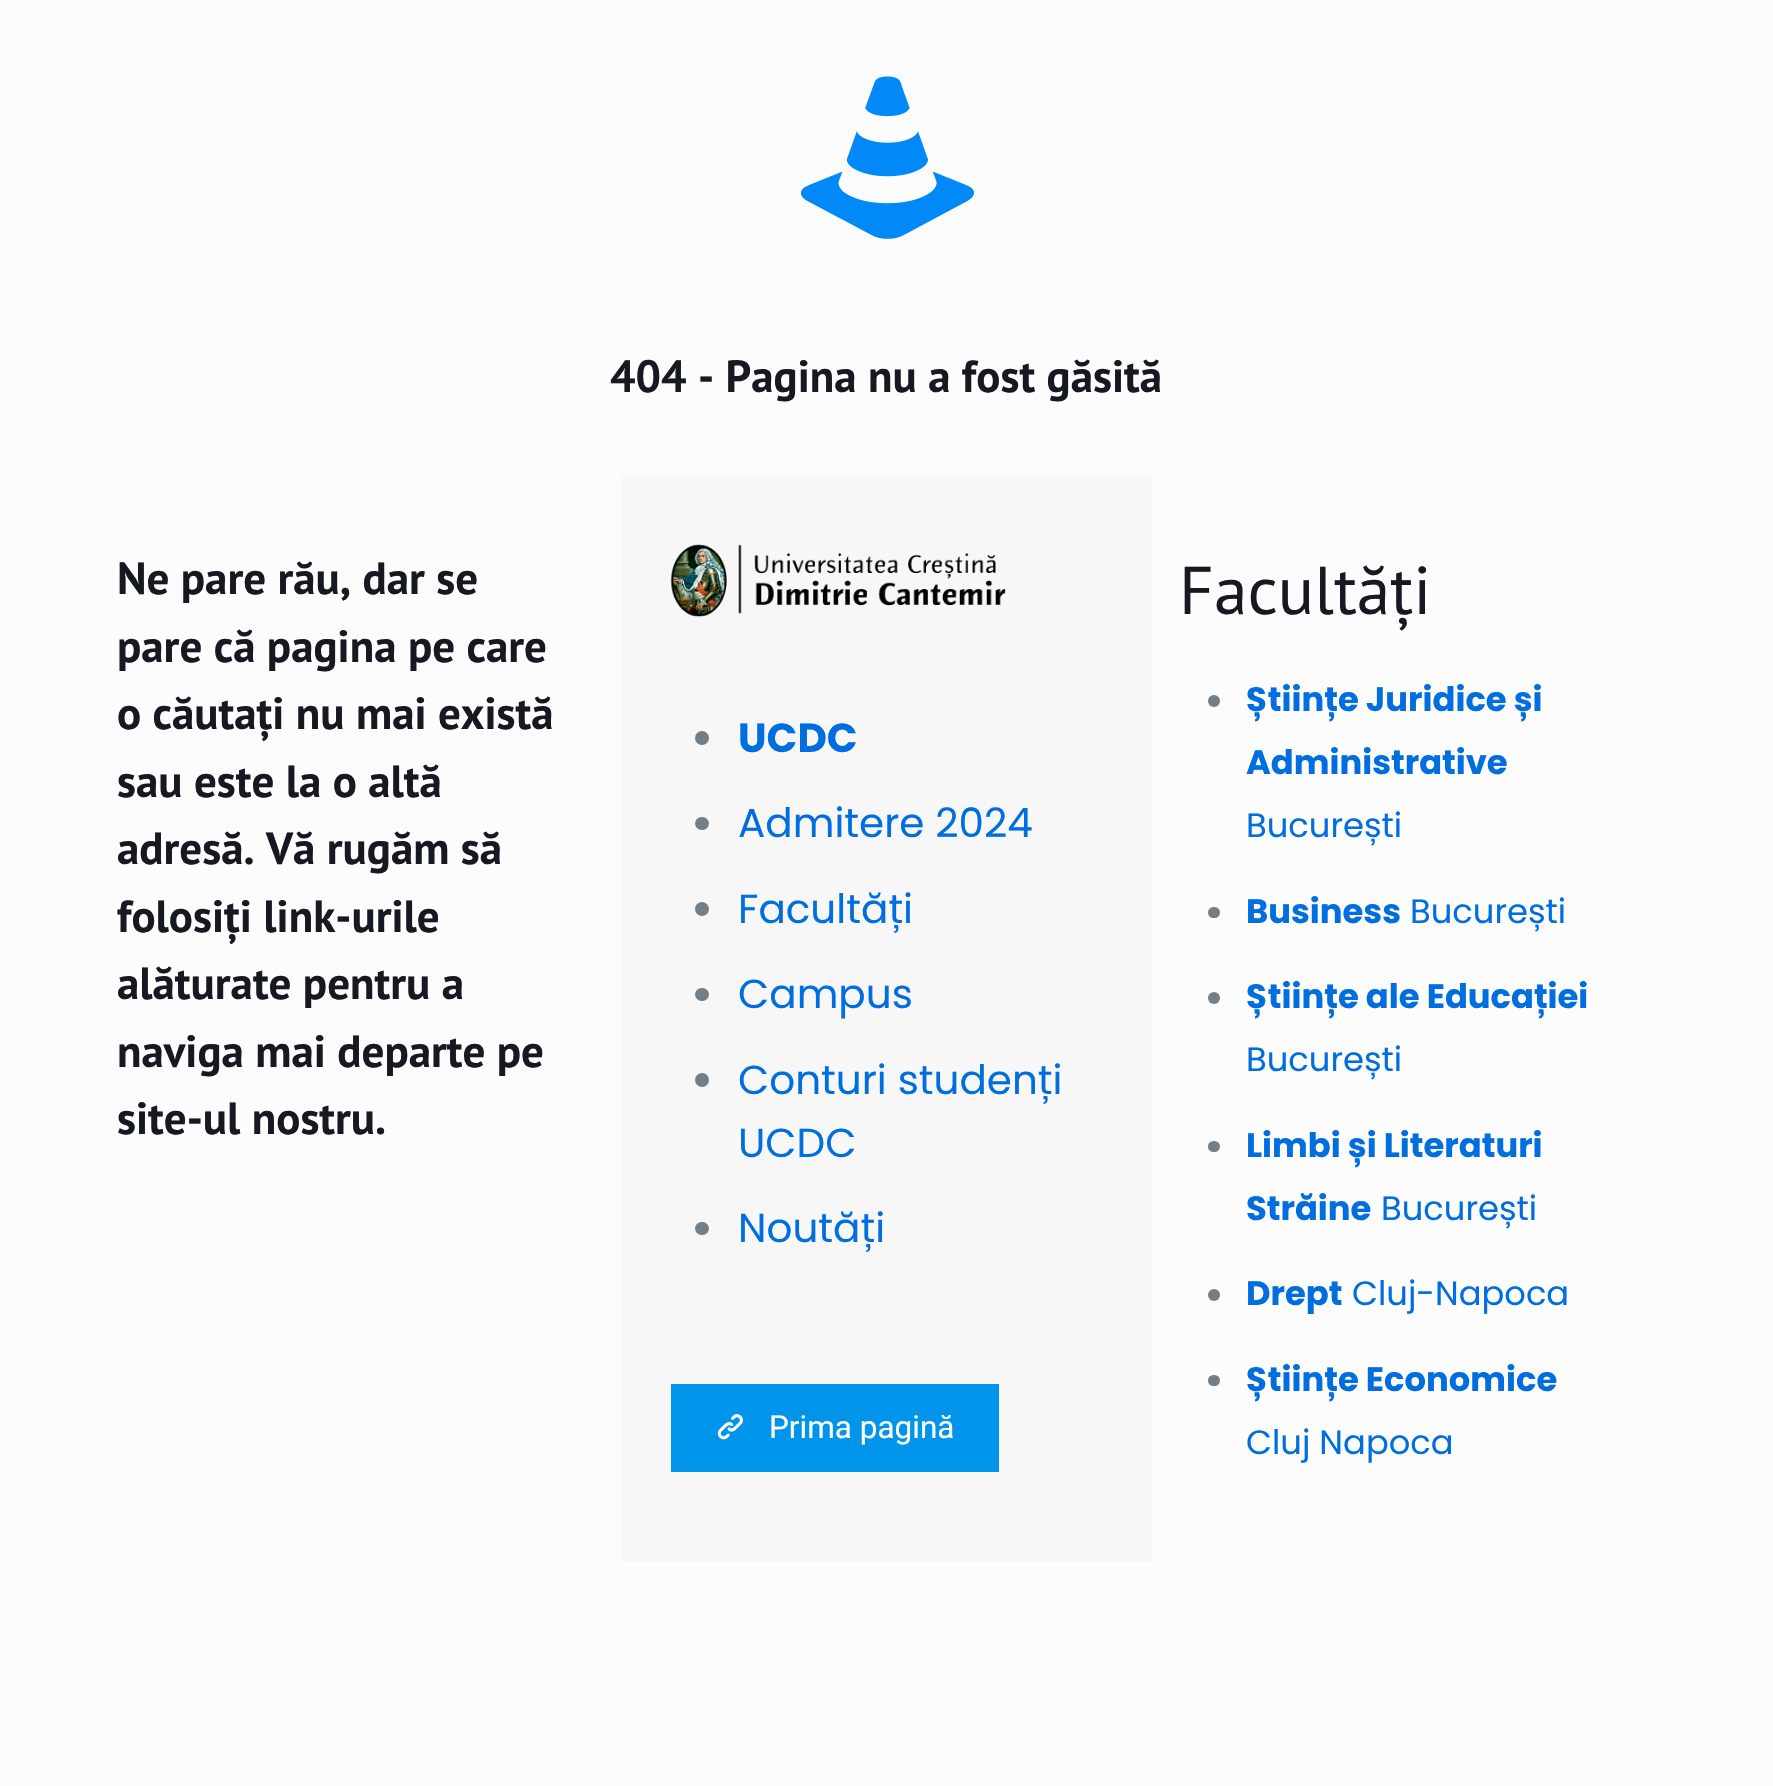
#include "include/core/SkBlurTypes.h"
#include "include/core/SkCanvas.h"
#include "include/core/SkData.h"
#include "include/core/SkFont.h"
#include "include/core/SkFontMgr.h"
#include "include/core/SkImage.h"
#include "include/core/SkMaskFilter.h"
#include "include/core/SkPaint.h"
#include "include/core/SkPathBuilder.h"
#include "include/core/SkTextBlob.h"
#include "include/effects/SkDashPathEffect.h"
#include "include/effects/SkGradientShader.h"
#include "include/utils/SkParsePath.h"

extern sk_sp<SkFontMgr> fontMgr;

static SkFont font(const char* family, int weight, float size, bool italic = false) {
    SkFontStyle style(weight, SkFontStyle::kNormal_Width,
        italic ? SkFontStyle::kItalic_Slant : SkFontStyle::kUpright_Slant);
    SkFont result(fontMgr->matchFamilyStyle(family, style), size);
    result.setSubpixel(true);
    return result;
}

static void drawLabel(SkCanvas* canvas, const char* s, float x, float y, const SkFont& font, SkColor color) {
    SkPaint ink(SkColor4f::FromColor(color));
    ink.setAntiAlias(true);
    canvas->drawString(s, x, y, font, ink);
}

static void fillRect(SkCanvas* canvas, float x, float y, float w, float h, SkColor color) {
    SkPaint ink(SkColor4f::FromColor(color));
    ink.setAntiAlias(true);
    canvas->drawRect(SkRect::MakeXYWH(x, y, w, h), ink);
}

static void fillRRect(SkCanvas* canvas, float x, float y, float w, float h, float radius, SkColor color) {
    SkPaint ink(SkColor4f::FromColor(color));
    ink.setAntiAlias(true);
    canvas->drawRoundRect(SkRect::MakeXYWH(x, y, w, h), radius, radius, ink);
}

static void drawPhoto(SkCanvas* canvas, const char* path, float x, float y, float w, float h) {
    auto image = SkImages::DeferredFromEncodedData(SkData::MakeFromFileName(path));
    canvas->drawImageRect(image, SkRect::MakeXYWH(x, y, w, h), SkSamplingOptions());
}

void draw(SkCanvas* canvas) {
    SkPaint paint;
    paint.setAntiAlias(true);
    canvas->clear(0xFFFCFCFC);
    drawPhoto(canvas, "assets/img1.png", 801, 76, 173, 163);
    SkFont font1 = font("PT Sans", 700, 45);
    drawLabel(canvas, "404 - Pagina nu a fost găsită", 610, 392, font1, 0xFF161922);
    drawLabel(canvas, "Ne pare rău, dar se", 117, 594, font1, 0xFF161922);
    drawLabel(canvas, "pare că pagina pe care", 117, 662, font1, 0xFF161922);
    drawLabel(canvas, "o căutați nu mai există", 117, 729, font1, 0xFF161922);
    drawLabel(canvas, "sau este la o altă", 117, 797, font1, 0xFF161922);
    drawLabel(canvas, "adresă. Vă rugăm să", 117, 864, font1, 0xFF161922);
    drawLabel(canvas, "folosiți link-urile", 117, 932, font1, 0xFF161922);
    drawLabel(canvas, "alăturate pentru a", 117, 999, font1, 0xFF161922);
    drawLabel(canvas, "naviga mai departe pe", 117, 1067, font1, 0xFF161922);
    drawLabel(canvas, "site-ul nostru.", 117, 1134, font1, 0xFF161922);
    fillRect(canvas, 621, 477, 531, 1085, 0xFFF7F7F7);
    drawPhoto(canvas, "assets/img2.png", 670, 544, 336, 73);
    paint.setColor(0xFF737E86);
    canvas->drawCircle(702, 738, 7, paint);
    SkFont font2 = font("Poppins", 700, 40.5f);
    drawLabel(canvas, "UCDC", 738, 752, font2, 0xFF006EDF);
    fillRRect(canvas, 695, 817, 14, 13, 6.5f, 0xFF737E86);
    SkFont font3 = font("Poppins", 400, 40.5f);
    drawLabel(canvas, "Admitere 2024", 738, 837, font3, 0xFF006EDF);
    canvas->drawCircle(702, 909, 7, paint);
    drawLabel(canvas, "Facultăți", 738, 923, font3, 0xFF006EDF);
    fillRRect(canvas, 695, 988, 14, 13, 6.5f, 0xFF737E86);
    drawLabel(canvas, "Campus", 738, 1008, font3, 0xFF006EDF);
    canvas->drawCircle(702, 1080, 7, paint);
    drawLabel(canvas, "Conturi studenți", 738, 1094, font3, 0xFF006EDF);
    drawLabel(canvas, "UCDC", 738, 1157, font3, 0xFF006EDF);
    fillRRect(canvas, 695, 1222, 14, 13, 6.5f, 0xFF737E86);
    drawLabel(canvas, "Noutăți", 738, 1242, font3, 0xFF006EDF);
    fillRect(canvas, 671, 1384, 328, 88, 0xFF0095EB);
    drawPhoto(canvas, "assets/img3.png", 717, 1414, 26, 26);
    SkFont font4 = font("Roboto", 400, 31.5f);
    drawLabel(canvas, "Prima pagină", 769, 1438, font4, 0xFFFFFFFF);
    SkFont font5 = font("PT Sans", 400, 67.5f);
    drawLabel(canvas, "Facultăți", 1179, 614, font5, 0xFF161922);
    canvas->drawCircle(1214, 701, 6, paint);
    SkFont font6 = font("Poppins", 700, 33.75f);
    drawLabel(canvas, "Științe Juridice și", 1246, 711, font6, 0xFF006EDF);
    drawLabel(canvas, "Administrative", 1246, 774, font6, 0xFF006EDF);
    SkFont font7 = font("Poppins", 400, 33.75f);
    drawLabel(canvas, "București", 1246, 837, font7, 0xFF006EDF);
    fillRRect(canvas, 1208, 907, 12, 11, 5.5f, 0xFF737E86);
    drawLabel(canvas, "Business", 1246, 923, font6, 0xFF006EDF);
    drawLabel(canvas, "București", 1410, 923, font7, 0xFF006EDF);
    canvas->drawCircle(1214, 998, 6, paint);
    drawLabel(canvas, "Științe ale Educației", 1246, 1008, font6, 0xFF006EDF);
    drawLabel(canvas, "București", 1246, 1071, font7, 0xFF006EDF);
    fillRRect(canvas, 1208, 1141, 12, 11, 5.5f, 0xFF737E86);
    drawLabel(canvas, "Limbi și Literaturi", 1246, 1157, font6, 0xFF006EDF);
    drawLabel(canvas, "Străine", 1246, 1220, font6, 0xFF006EDF);
    drawLabel(canvas, "București", 1381, 1220, font7, 0xFF006EDF);
    canvas->drawCircle(1214, 1295, 6, paint);
    drawLabel(canvas, "Drept", 1246, 1305, font6, 0xFF006EDF);
    drawLabel(canvas, "Cluj-Napoca", 1352, 1305, font7, 0xFF006EDF);
    fillRRect(canvas, 1208, 1375, 12, 11, 5.5f, 0xFF737E86);
    drawLabel(canvas, "Științe Economice", 1246, 1391, font6, 0xFF006EDF);
    drawLabel(canvas, "Cluj Napoca", 1246, 1454, font7, 0xFF006EDF);
}
